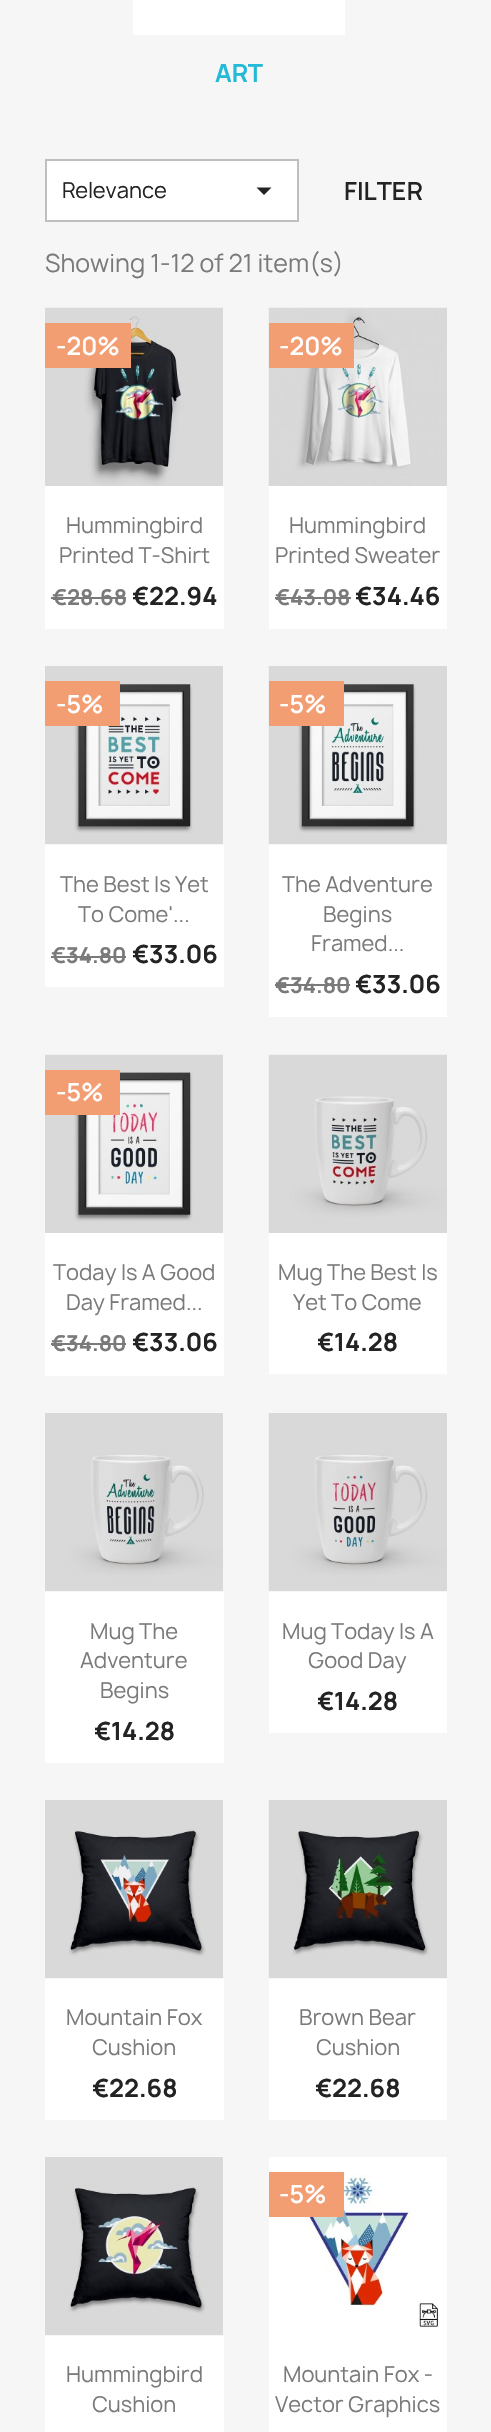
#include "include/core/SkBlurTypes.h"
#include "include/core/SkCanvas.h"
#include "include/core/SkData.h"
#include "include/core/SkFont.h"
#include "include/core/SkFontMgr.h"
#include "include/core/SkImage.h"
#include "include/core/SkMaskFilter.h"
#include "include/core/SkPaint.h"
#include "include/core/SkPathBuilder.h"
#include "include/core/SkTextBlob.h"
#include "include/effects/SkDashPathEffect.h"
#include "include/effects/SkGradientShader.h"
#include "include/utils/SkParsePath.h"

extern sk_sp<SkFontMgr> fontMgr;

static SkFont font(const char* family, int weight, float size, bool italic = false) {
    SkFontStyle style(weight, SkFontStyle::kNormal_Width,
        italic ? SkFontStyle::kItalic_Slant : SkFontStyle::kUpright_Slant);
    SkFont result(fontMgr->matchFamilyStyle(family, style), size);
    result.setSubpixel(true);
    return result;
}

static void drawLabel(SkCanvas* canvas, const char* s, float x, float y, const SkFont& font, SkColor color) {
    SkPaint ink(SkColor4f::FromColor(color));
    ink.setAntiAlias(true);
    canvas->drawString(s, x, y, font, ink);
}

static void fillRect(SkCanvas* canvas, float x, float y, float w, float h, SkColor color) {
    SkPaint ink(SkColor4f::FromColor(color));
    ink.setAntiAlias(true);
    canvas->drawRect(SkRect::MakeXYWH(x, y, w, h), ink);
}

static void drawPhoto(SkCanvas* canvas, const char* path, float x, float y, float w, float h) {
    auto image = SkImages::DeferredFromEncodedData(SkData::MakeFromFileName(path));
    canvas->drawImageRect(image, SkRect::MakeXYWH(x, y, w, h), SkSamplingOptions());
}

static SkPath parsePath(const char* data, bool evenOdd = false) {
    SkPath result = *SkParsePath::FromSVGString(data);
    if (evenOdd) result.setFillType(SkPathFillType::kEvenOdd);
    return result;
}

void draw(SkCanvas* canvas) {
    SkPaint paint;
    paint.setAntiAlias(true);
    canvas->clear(0xFFF6F6F6);
    fillRect(canvas, 133, 0, 212, 35, 0xFFFFFFFF);
    SkFont font1 = font("Manrope", 700, 24);
    drawLabel(canvas, "ART", 215, 82, font1, 0xFF24B9D7);
    paint.setColor(0xFFFFFFFF);
    canvas->drawRect(SkRect::MakeXYWH(46, 160, 252, 61), paint);
    paint.setStroke(true);
    paint.setStrokeWidth(2);
    paint.setColor(0xFFBFBFBF);
    canvas->drawRect(SkRect::MakeXYWH(46, 160, 252, 61), paint);
    SkFont font2 = font("Manrope", 400, 21);
    drawLabel(canvas, "Relevance", 62, 198, font2, 0xFF232323);
    paint.setStroke(false);
    paint.setColor(0xFF232323);
    canvas->drawPath(parsePath("M256.5 187.5H271.5L264 195Z"), paint);
    SkFont font3 = font("Manrope", 600, 24);
    drawLabel(canvas, "FILTER", 344, 200, font3, 0xFF232323);
    SkFont font4 = font("Manrope", 400, 24);
    drawLabel(canvas, "Showing 1-12 of 21 item(s)", 45, 272, font4, 0xFF7A7A7A);
    fillRect(canvas, 45, 308, 179, 321, 0xFFFFFFFF);
    drawPhoto(canvas, "assets/img1.png", 45, 307, 179, 179);
    fillRect(canvas, 45, 323, 86, 45, 0xFFF39D72);
    drawLabel(canvas, "-20%", 56, 355, font3, 0xFFFFFFFF);
    drawLabel(canvas, "Hummingbird", 66, 533, font2, 0xFF7A7A7A);
    drawLabel(canvas, "Printed T-Shirt", 59, 563, font2, 0xFF7A7A7A);
    SkFont font5 = font("Manrope", 700, 21);
    drawLabel(canvas, "€28.68", 52, 605, font5, 0xFF7A7A7A);
    fillRect(canvas, 51, 597, 75, 2, 0xFF7A7A7A);
    drawLabel(canvas, "€22.94", 132, 605, font1, 0xFF232323);
    fillRect(canvas, 269, 486, 178, 143, 0xFFFFFFFF);
    drawPhoto(canvas, "assets/img2.png", 268, 307, 179, 179);
    fillRect(canvas, 269, 323, 85, 45, 0xFFF39D72);
    drawLabel(canvas, "-20%", 279, 355, font3, 0xFFFFFFFF);
    drawLabel(canvas, "Hummingbird", 289, 533, font2, 0xFF7A7A7A);
    drawLabel(canvas, "Printed Sweater", 275, 563, font2, 0xFF7A7A7A);
    drawLabel(canvas, "€43.08", 275, 605, font5, 0xFF7A7A7A);
    fillRect(canvas, 275, 597, 76, 2, 0xFF7A7A7A);
    drawLabel(canvas, "€34.46", 355, 605, font1, 0xFF232323);
    fillRect(canvas, 45, 666, 179, 321, 0xFFFFFFFF);
    drawPhoto(canvas, "assets/img3.png", 45, 666, 179, 179);
    fillRect(canvas, 45, 681, 75, 45, 0xFFF39D72);
    drawLabel(canvas, "-5%", 56, 713, font3, 0xFFFFFFFF);
    drawLabel(canvas, "The Best Is Yet", 60, 892, font2, 0xFF7A7A7A);
    drawLabel(canvas, "To Come'...", 78, 922, font2, 0xFF7A7A7A);
    drawLabel(canvas, "€34.80", 51, 963, font5, 0xFF7A7A7A);
    fillRect(canvas, 51, 956, 75, 2, 0xFF7A7A7A);
    drawLabel(canvas, "€33.06", 132, 963, font1, 0xFF232323);
    fillRect(canvas, 269, 844, 178, 173, 0xFFFFFFFF);
    drawPhoto(canvas, "assets/img4.png", 268, 666, 179, 179);
    fillRect(canvas, 269, 681, 75, 45, 0xFFF39D72);
    drawLabel(canvas, "-5%", 279, 713, font3, 0xFFFFFFFF);
    drawLabel(canvas, "The Adventure", 282, 892, font2, 0xFF7A7A7A);
    drawLabel(canvas, "Begins", 323, 922, font2, 0xFF7A7A7A);
    drawLabel(canvas, "Framed...", 311, 951, font2, 0xFF7A7A7A);
    drawLabel(canvas, "€34.80", 275, 993, font5, 0xFF7A7A7A);
    fillRect(canvas, 275, 984, 75, 2, 0xFF7A7A7A);
    drawLabel(canvas, "€33.06", 355, 993, font1, 0xFF232323);
    fillRect(canvas, 45, 1055, 179, 321, 0xFFFFFFFF);
    drawPhoto(canvas, "assets/img5.png", 45, 1054, 179, 179);
    fillRect(canvas, 45, 1070, 75, 45, 0xFFF39D72);
    drawLabel(canvas, "-5%", 56, 1101, font3, 0xFFFFFFFF);
    drawLabel(canvas, "Today Is A Good", 53, 1280, font2, 0xFF7A7A7A);
    drawLabel(canvas, "Day Framed...", 66, 1310, font2, 0xFF7A7A7A);
    drawLabel(canvas, "€34.80", 51, 1351, font5, 0xFF7A7A7A);
    fillRect(canvas, 51, 1343, 75, 2, 0xFF7A7A7A);
    drawLabel(canvas, "€33.06", 132, 1351, font1, 0xFF232323);
    fillRect(canvas, 269, 1233, 178, 141, 0xFFFFFFFF);
    drawPhoto(canvas, "assets/img6.png", 268, 1054, 179, 179);
    drawLabel(canvas, "Mug The Best Is", 278, 1280, font2, 0xFF7A7A7A);
    drawLabel(canvas, "Yet To Come", 293, 1310, font2, 0xFF7A7A7A);
    drawLabel(canvas, "€14.28", 317, 1351, font1, 0xFF232323);
    fillRect(canvas, 45, 1413, 179, 350, 0xFFFFFFFF);
    drawPhoto(canvas, "assets/img7.png", 45, 1413, 179, 179);
    drawLabel(canvas, "Mug The", 90, 1639, font2, 0xFF7A7A7A);
    drawLabel(canvas, "Adventure", 80, 1668, font2, 0xFF7A7A7A);
    drawLabel(canvas, "Begins", 100, 1698, font2, 0xFF7A7A7A);
    drawLabel(canvas, "€14.28", 94, 1740, font1, 0xFF232323);
    fillRect(canvas, 269, 1591, 178, 142, 0xFFFFFFFF);
    drawPhoto(canvas, "assets/img8.png", 268, 1413, 179, 179);
    drawLabel(canvas, "Mug Today Is A", 282, 1639, font2, 0xFF7A7A7A);
    drawLabel(canvas, "Good Day", 308, 1668, font2, 0xFF7A7A7A);
    drawLabel(canvas, "€14.28", 317, 1710, font1, 0xFF232323);
    fillRect(canvas, 45, 1800, 179, 320, 0xFFFFFFFF);
    drawPhoto(canvas, "assets/img9.png", 45, 1800, 179, 179);
    drawLabel(canvas, "Mountain Fox", 66, 2025, font2, 0xFF7A7A7A);
    drawLabel(canvas, "Cushion", 92, 2055, font2, 0xFF7A7A7A);
    drawLabel(canvas, "€22.68", 92, 2097, font1, 0xFF232323);
    fillRect(canvas, 269, 1978, 178, 142, 0xFFFFFFFF);
    drawPhoto(canvas, "assets/img10.png", 268, 1800, 179, 179);
    drawLabel(canvas, "Brown Bear", 299, 2025, font2, 0xFF7A7A7A);
    drawLabel(canvas, "Cushion", 316, 2055, font2, 0xFF7A7A7A);
    drawLabel(canvas, "€22.68", 315, 2097, font1, 0xFF232323);
    fillRect(canvas, 45, 2157, 179, 275, 0xFFFFFFFF);
    drawPhoto(canvas, "assets/img11.png", 45, 2157, 179, 179);
    drawLabel(canvas, "Hummingbird", 66, 2382, font2, 0xFF7A7A7A);
    drawLabel(canvas, "Cushion", 92, 2412, font2, 0xFF7A7A7A);
    fillRect(canvas, 269, 2157, 178, 275, 0xFFFFFFFF);
    drawPhoto(canvas, "assets/img12.png", 302, 2174, 137, 154);
    fillRect(canvas, 269, 2172, 75, 45, 0xFFF39D72);
    drawLabel(canvas, "-5%", 279, 2203, font3, 0xFFFFFFFF);
    drawLabel(canvas, "Mountain Fox -", 283, 2382, font2, 0xFF7A7A7A);
    drawLabel(canvas, "Vector Graphics", 275, 2412, font2, 0xFF7A7A7A);
}
